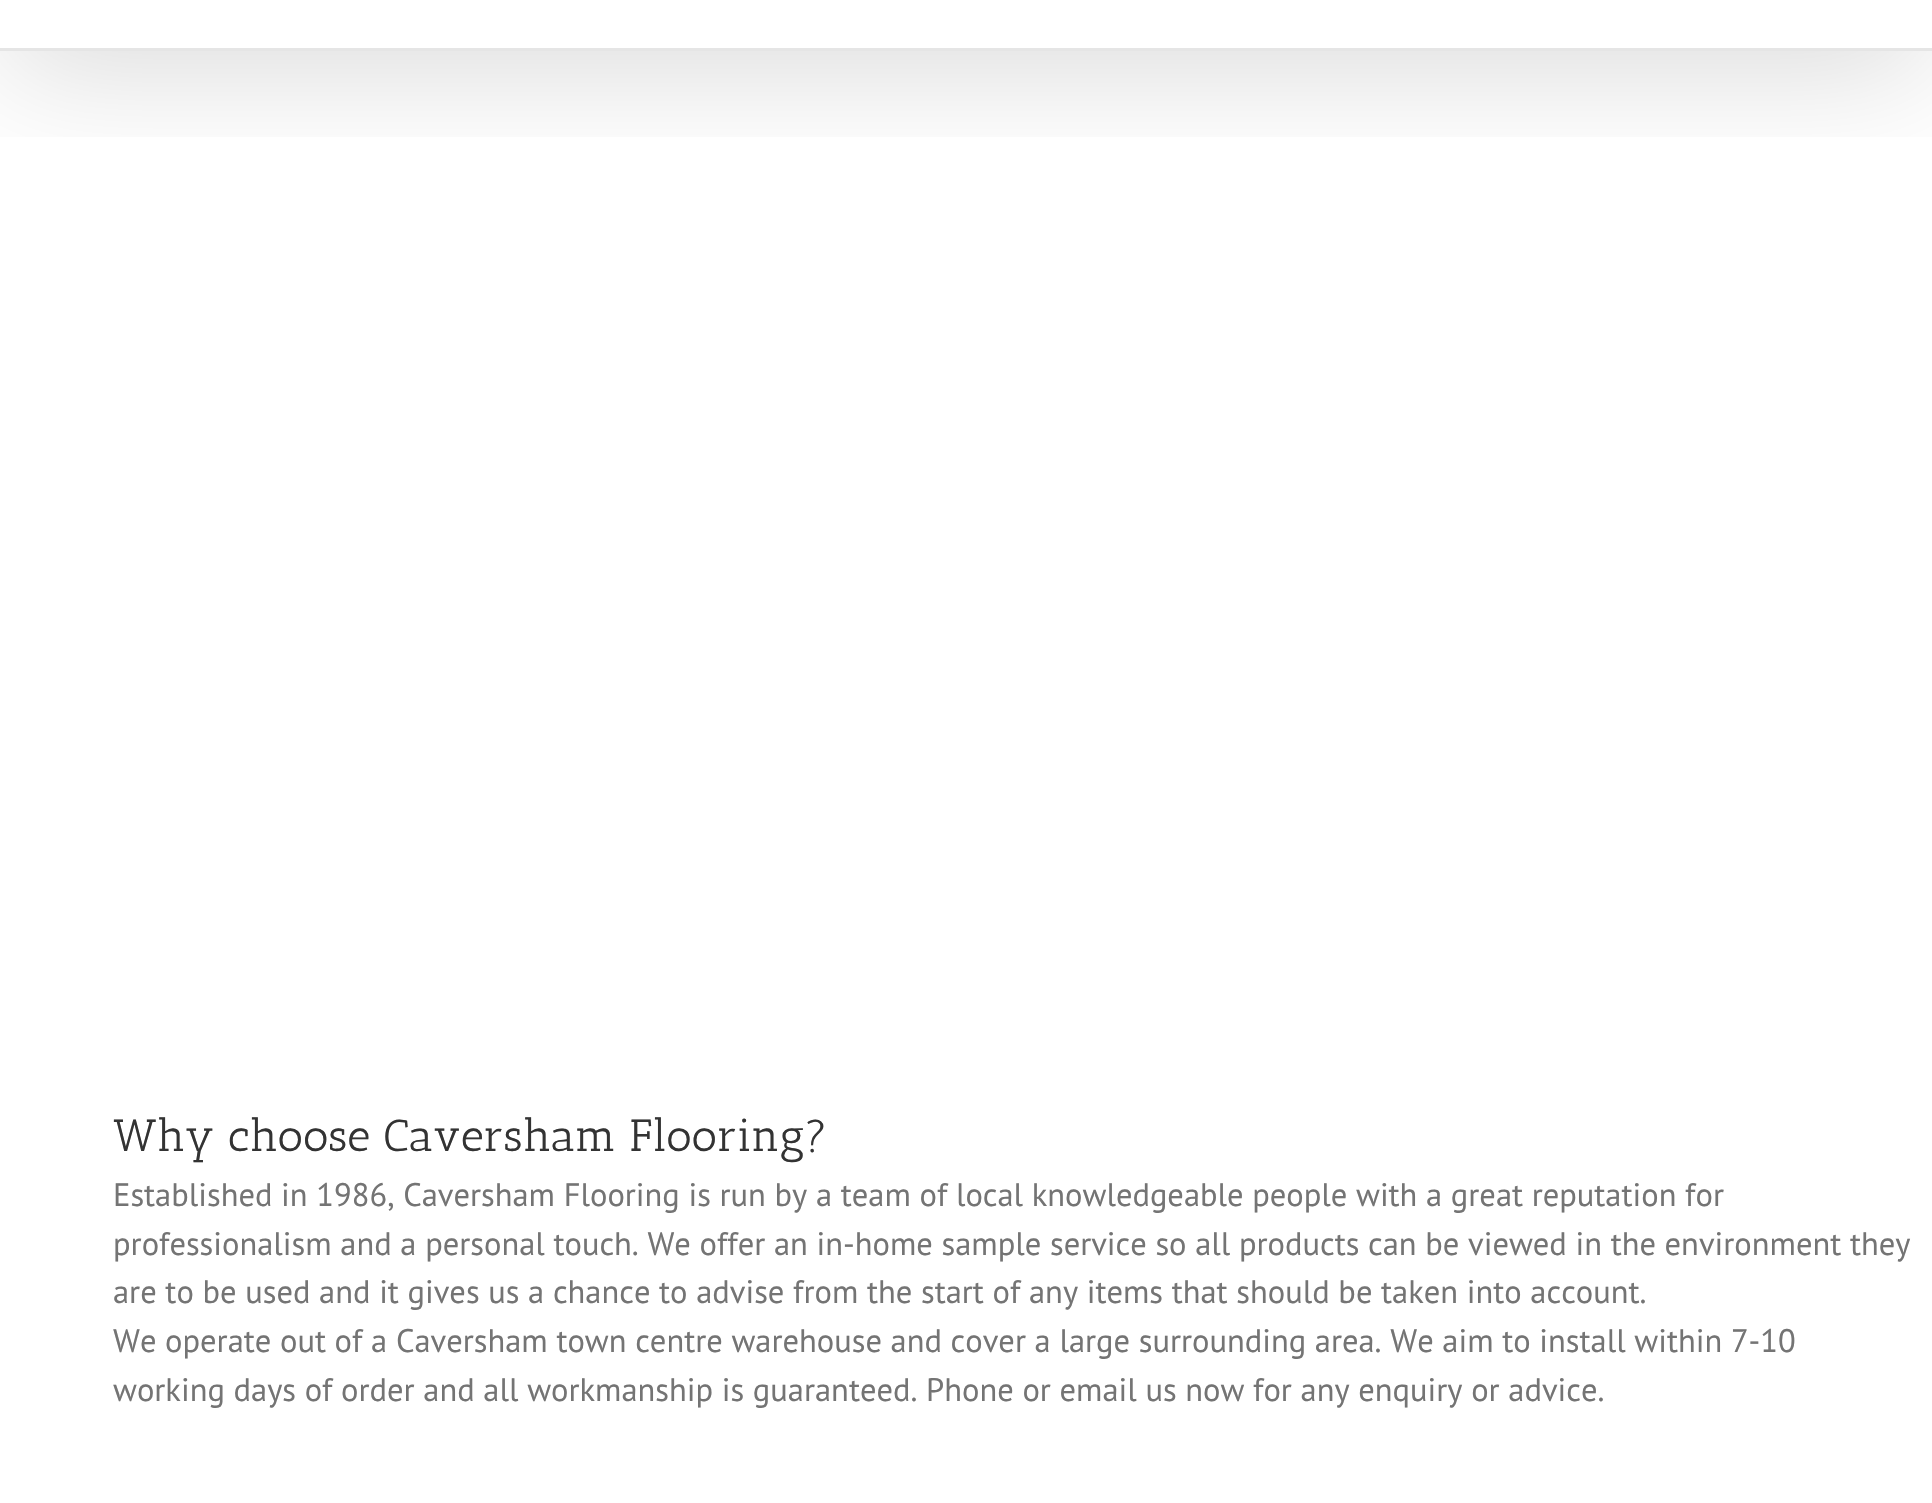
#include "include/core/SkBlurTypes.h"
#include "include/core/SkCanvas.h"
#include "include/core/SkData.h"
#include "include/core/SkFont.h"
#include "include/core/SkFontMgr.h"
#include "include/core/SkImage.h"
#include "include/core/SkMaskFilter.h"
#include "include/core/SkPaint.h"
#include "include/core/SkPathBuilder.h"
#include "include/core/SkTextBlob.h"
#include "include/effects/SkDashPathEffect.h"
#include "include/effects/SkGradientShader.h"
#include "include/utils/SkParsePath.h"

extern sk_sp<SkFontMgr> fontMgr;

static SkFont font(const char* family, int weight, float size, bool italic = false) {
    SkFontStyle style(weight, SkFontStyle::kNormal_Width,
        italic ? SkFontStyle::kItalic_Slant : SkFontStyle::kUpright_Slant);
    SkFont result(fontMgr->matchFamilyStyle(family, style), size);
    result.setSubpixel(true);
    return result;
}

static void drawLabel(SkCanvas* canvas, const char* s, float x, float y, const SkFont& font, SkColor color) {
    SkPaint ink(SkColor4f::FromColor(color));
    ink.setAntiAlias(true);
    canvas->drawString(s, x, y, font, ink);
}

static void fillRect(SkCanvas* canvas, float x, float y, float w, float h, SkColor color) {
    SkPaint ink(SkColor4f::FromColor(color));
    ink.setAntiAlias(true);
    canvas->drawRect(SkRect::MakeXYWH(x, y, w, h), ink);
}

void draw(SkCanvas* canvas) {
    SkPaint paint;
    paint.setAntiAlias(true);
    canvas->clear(0xFFFFFFFF);
    canvas->save();
    canvas->clipRect(SkRect::MakeXYWH(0, 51, 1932, 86));
    paint.setColor(0x24000000);
    paint.setMaskFilter(SkMaskFilter::MakeBlur(kNormal_SkBlurStyle, 62.5f));
    canvas->drawRect(SkRect::MakeXYWH(5, -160, 1923, 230), paint);
    paint.setMaskFilter(nullptr);
    canvas->restore();
    fillRect(canvas, 0, 48, 1932, 3, 0xFFE5E5E5);
    SkFont font1 = font("Antic Slab", 400, 45);
    drawLabel(canvas, "Why choose Caversham Flooring?", 113, 1151, font1, 0xFF333333);
    SkFont font2 = font("PT Sans", 400, 32.5f);
    drawLabel(canvas, "Established in 1986, Caversham Flooring is run by a team of local knowledgeable people with a great reputation for", 113, 1206, font2, 0xFF747474);
    drawLabel(canvas, "professionalism and a personal touch. We offer an in-home sample service so all products can be viewed in the environment they", 113, 1255, font2, 0xFF747474);
    drawLabel(canvas, "are to be used and it gives us a chance to advise from the start of any items that should be taken into account.", 113, 1303, font2, 0xFF747474);
    drawLabel(canvas, "We operate out of a Caversham town centre warehouse and cover a large surrounding area. We aim to install within 7-10", 113, 1352, font2, 0xFF747474);
    drawLabel(canvas, "working days of order and all workmanship is guaranteed. Phone or email us now for any enquiry or advice.", 113, 1401, font2, 0xFF747474);
}
